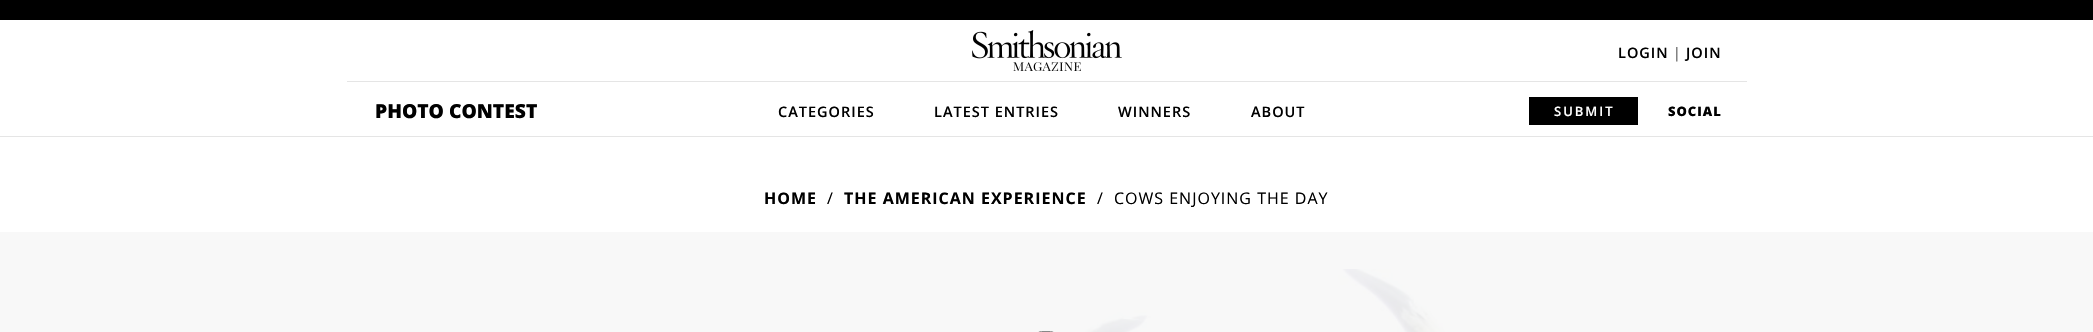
#include "include/core/SkBlurTypes.h"
#include "include/core/SkCanvas.h"
#include "include/core/SkData.h"
#include "include/core/SkFont.h"
#include "include/core/SkFontMgr.h"
#include "include/core/SkImage.h"
#include "include/core/SkMaskFilter.h"
#include "include/core/SkPaint.h"
#include "include/core/SkPathBuilder.h"
#include "include/core/SkTextBlob.h"
#include "include/effects/SkDashPathEffect.h"
#include "include/effects/SkGradientShader.h"
#include "include/utils/SkParsePath.h"

extern sk_sp<SkFontMgr> fontMgr;

static SkFont font(const char* family, int weight, float size, bool italic = false) {
    SkFontStyle style(weight, SkFontStyle::kNormal_Width,
        italic ? SkFontStyle::kItalic_Slant : SkFontStyle::kUpright_Slant);
    SkFont result(fontMgr->matchFamilyStyle(family, style), size);
    result.setSubpixel(true);
    return result;
}

static void drawLabel(SkCanvas* canvas, const char* s, float x, float y, const SkFont& font, SkColor color) {
    SkPaint ink(SkColor4f::FromColor(color));
    ink.setAntiAlias(true);
    canvas->drawString(s, x, y, font, ink);
}

static void drawTracked(SkCanvas* canvas, const char* s, float x, float y, const SkFont& font, const SkPaint& ink, float letter, float word) {
    std::vector<SkGlyphID> glyphs(font.countText(s, strlen(s), SkTextEncoding::kUTF8));
    std::vector<float> xs(glyphs.size());
    font.textToGlyphs(s, strlen(s), SkTextEncoding::kUTF8, glyphs);
    font.getXPos(glyphs, xs, x);
    float extra = 0;
    for (size_t i = 0; i < glyphs.size(); i++) {
        xs[i] += extra;
        extra += letter + word * (glyphs[i] == font.unicharToGlyph(' '));
    }
    canvas->drawTextBlob(SkTextBlob::MakeFromPosHGlyphs(glyphs, xs, y, font), 0, 0, ink);
}

static void fillRect(SkCanvas* canvas, float x, float y, float w, float h, SkColor color) {
    SkPaint ink(SkColor4f::FromColor(color));
    ink.setAntiAlias(true);
    canvas->drawRect(SkRect::MakeXYWH(x, y, w, h), ink);
}

static void drawPhoto(SkCanvas* canvas, const char* path, float x, float y, float w, float h) {
    auto image = SkImages::DeferredFromEncodedData(SkData::MakeFromFileName(path));
    canvas->drawImageRect(image, SkRect::MakeXYWH(x, y, w, h), SkSamplingOptions());
}

void draw(SkCanvas* canvas) {
    SkPaint paint;
    paint.setAntiAlias(true);
    canvas->clear(0xFFFFFFFF);
    fillRect(canvas, 0, 232, 2093, 100, 0xFFF8F8F8);
    fillRect(canvas, 0, 0, 2093, 20, 0xFF000000);
    fillRect(canvas, 0, 136, 2093, 1, 0xFFE5E5E5);
    drawPhoto(canvas, "assets/img1.png", 972, 30, 150, 41);
    SkFont font1 = font("Open Sans", 600, 14.5f);
    paint.setColor(0xFF000000);
    drawTracked(canvas, "LOGIN", 1618, 58, font1, paint, 1, 0);
    SkFont font2 = font("Open Sans", 300, 14.5f);
    drawTracked(canvas, "|", 1673, 58, font2, paint, 1, 0);
    drawTracked(canvas, "JOIN", 1686, 58, font1, paint, 1, 0);
    fillRect(canvas, 347, 81, 1400, 1, 0xFFE5E5E5);
    SkFont font3 = font("Open Sans", 800, 19.25f);
    drawLabel(canvas, "PHOTO CONTEST", 375, 118, font3, 0xFF000000);
    drawTracked(canvas, "CATEGORIES", 778, 117, font1, paint, 1, 0);
    drawTracked(canvas, "LATEST ENTRIES", 934, 117, font1, paint, 1, 0);
    drawTracked(canvas, "WINNERS", 1118, 117, font1, paint, 1, 0);
    drawTracked(canvas, "ABOUT", 1251, 117, font1, paint, 1, 0);
    fillRect(canvas, 1529, 97, 109, 28, 0xFF000000);
    SkFont font4 = font("Open Sans", 600, 13);
    paint.setColor(0xFFFFFFFF);
    drawTracked(canvas, "SUBMIT", 1554, 116, font4, paint, 2, 0);
    SkFont font5 = font("Open Sans", 800, 13);
    paint.setColor(0xFF000000);
    drawTracked(canvas, "SOCIAL", 1668, 116, font5, paint, 1, 0);
    SkFont font6 = font("Open Sans", 700, 16);
    drawTracked(canvas, "HOME", 764, 204, font6, paint, 1, 0);
    SkFont font7 = font("Open Sans", 400, 16);
    drawTracked(canvas, "/", 827, 204, font7, paint, 1, 0);
    drawTracked(canvas, "THE AMERICAN EXPERIENCE", 844, 204, font6, paint, 1, 0);
    drawTracked(canvas, "/", 1097, 204, font7, paint, 1, 0);
    drawTracked(canvas, "COWS ENJOYING THE DAY", 1114, 204, font7, paint, 1, 0);
    drawPhoto(canvas, "assets/img2.png", 1085, 269, 360, 63);
    paint.setStroke(true);
    paint.setStrokeWidth(1);
    paint.setColor(0xFF888888);
    canvas->drawRoundRect(SkRect::MakeXYWH(1035.5f, 331.5f, 21, 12), 10.5f, 10.5f, paint);
}
